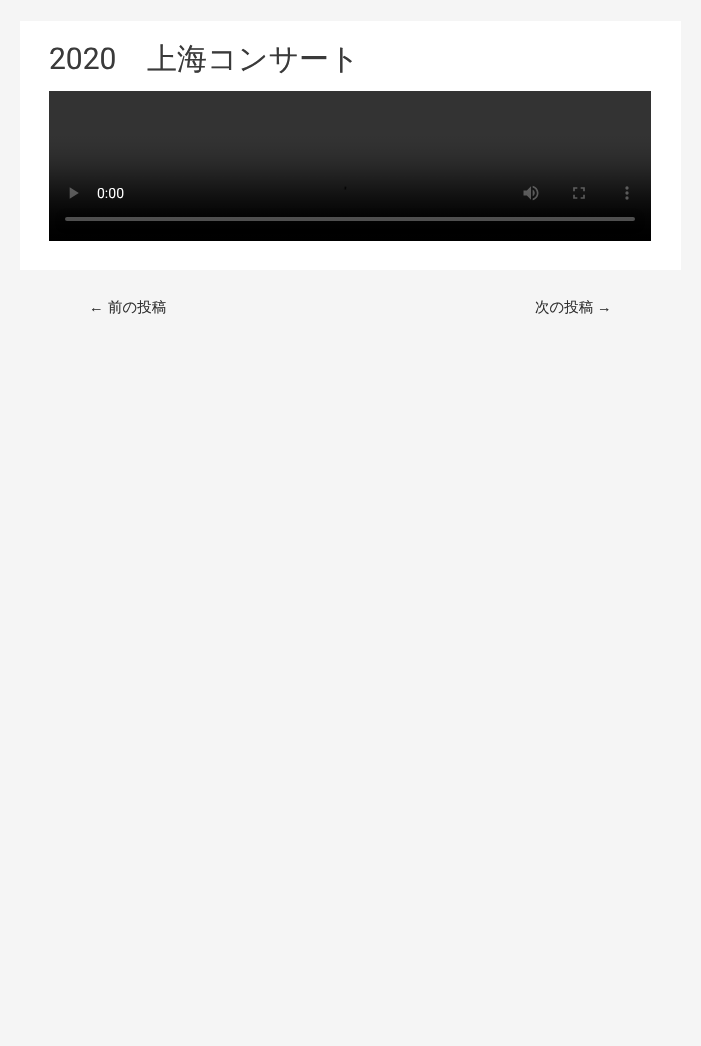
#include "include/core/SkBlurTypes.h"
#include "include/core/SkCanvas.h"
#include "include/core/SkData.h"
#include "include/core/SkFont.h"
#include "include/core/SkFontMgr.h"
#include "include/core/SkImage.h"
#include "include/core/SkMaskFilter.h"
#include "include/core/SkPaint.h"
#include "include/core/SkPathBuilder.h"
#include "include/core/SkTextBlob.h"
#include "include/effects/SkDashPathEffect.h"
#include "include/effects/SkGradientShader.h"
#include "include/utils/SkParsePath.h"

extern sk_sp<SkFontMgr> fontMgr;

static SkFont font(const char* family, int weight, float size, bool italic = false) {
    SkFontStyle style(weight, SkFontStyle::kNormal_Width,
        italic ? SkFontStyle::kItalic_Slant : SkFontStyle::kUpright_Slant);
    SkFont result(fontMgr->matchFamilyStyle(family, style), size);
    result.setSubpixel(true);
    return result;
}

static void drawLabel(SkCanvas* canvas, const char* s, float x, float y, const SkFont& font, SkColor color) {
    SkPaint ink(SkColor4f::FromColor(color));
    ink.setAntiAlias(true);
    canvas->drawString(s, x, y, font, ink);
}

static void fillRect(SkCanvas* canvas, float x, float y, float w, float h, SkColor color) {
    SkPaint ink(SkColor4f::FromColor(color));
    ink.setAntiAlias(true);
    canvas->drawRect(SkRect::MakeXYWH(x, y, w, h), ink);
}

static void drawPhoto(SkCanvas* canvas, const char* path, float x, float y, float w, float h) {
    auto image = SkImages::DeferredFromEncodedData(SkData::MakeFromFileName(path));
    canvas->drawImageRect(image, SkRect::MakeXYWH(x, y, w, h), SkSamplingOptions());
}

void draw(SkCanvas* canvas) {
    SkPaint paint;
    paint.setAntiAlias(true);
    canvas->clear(0xFFF5F5F5);
    fillRect(canvas, 20, 21, 661, 249, 0xFFFFFFFF);
    SkFont font1 = font("Roboto", 400, 30);
    drawLabel(canvas, "2020", 49, 69, font1, 0xFF3A3A3A);
    SkFont font2 = font("WenQuanYi Zen Hei", 500, 30);
    drawLabel(canvas, "上海コンサート", 147, 69, font2, 0xFF3A3A3A);
    drawPhoto(canvas, "assets/img1.png", 49, 91, 602, 150);
    SkFont font3 = font("Liberation Sans", 400, 14.5f);
    drawLabel(canvas, "←", 89, 312, font3, 0xFF323232);
    SkFont font4 = font("WenQuanYi Zen Hei", 500, 14.5f);
    drawLabel(canvas, "前の投稿", 108, 312, font4, 0xFF323232);
    drawLabel(canvas, "次の投稿", 535, 312, font4, 0xFF323232);
    drawLabel(canvas, "→", 597, 312, font3, 0xFF323232);
}
